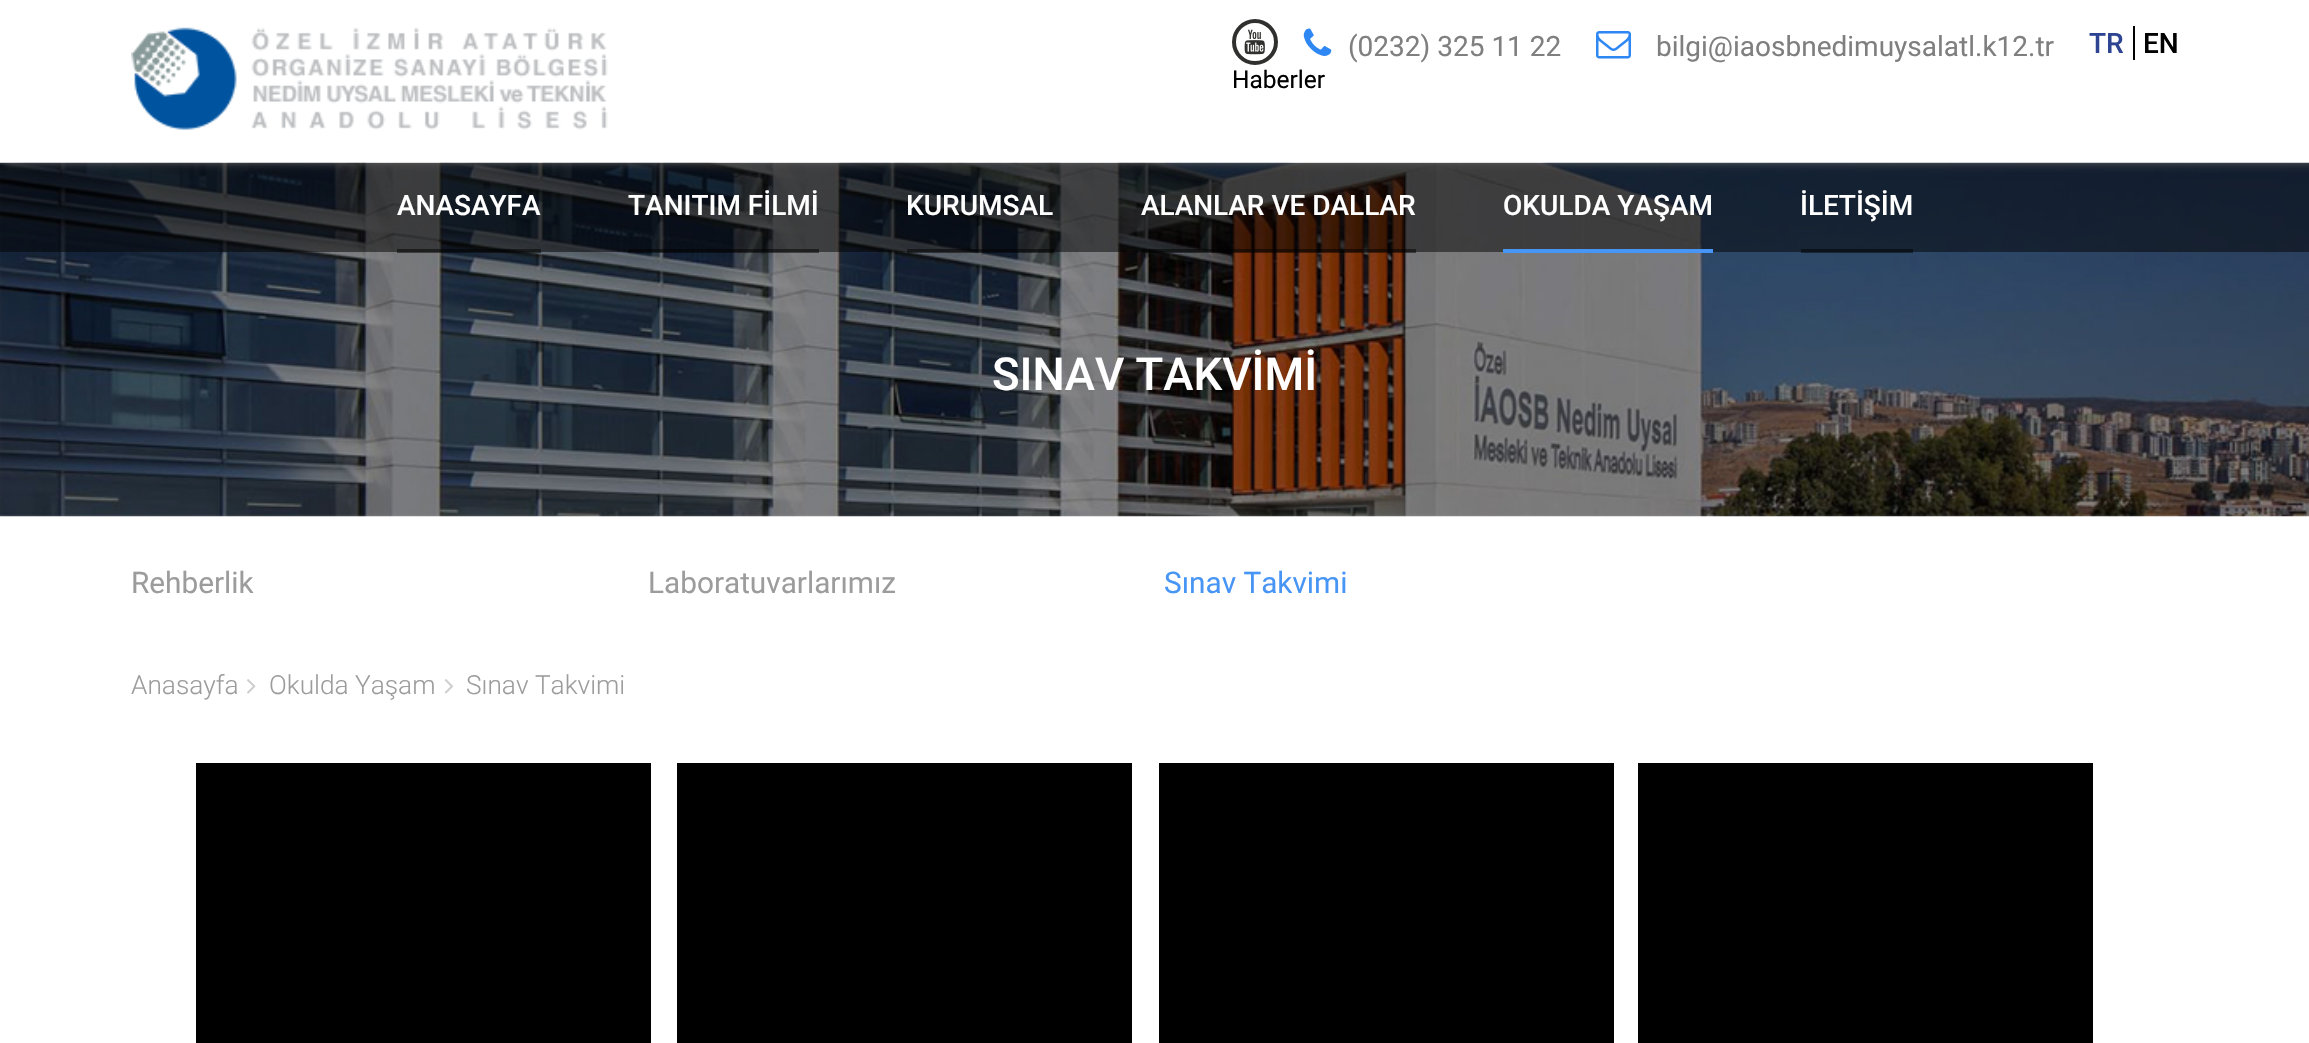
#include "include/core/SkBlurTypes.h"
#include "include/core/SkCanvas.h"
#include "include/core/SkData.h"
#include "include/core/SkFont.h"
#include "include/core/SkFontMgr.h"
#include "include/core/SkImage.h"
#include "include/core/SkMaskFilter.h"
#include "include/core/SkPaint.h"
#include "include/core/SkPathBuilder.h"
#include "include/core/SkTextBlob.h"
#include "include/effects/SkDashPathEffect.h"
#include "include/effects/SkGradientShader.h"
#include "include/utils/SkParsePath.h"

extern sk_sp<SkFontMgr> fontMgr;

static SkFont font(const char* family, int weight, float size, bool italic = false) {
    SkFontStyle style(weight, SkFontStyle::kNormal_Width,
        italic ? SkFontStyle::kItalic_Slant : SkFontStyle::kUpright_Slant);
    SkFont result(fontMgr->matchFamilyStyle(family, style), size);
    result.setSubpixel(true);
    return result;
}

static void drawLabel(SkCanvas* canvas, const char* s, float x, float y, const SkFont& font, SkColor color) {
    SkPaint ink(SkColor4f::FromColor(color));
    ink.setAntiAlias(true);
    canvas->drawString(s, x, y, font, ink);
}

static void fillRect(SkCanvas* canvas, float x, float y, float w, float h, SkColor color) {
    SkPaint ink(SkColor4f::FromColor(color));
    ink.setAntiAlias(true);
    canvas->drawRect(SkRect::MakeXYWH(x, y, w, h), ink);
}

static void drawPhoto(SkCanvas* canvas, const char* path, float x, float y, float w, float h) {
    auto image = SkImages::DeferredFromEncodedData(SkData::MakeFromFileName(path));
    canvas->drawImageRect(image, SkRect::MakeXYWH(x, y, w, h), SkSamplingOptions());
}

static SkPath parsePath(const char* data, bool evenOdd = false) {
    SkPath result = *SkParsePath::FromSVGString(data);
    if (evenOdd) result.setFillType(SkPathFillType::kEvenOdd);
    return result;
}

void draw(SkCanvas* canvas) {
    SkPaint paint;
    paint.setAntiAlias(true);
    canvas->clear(0xFFFFFFFF);
    drawPhoto(canvas, "assets/img5.png", 0, 162, 2309, 355);
    canvas->save();
    canvas->clipPath(parsePath("M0 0H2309V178H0ZM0 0H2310V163H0Z", true), true);
    paint.setColor(0xFFB1B1B1);
    paint.setMaskFilter(SkMaskFilter::MakeBlur(kNormal_SkBlurStyle, 4.5f));
    canvas->drawRect(SkRect::MakeXYWH(5, 0, 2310, 163), paint);
    paint.setMaskFilter(nullptr);
    canvas->restore();
    drawPhoto(canvas, "assets/img1.png", 131, 27, 477, 103);
    paint.setStroke(true);
    paint.setStrokeWidth(4);
    paint.setColor(0xFF30302E);
    canvas->drawCircle(1255, 42, 21, paint);
    drawPhoto(canvas, "assets/img2.png", 1244, 29, 21, 26);
    drawPhoto(canvas, "assets/img3.png", 1303, 28, 29, 28);
    SkFont font1 = font("Roboto", 400, 28);
    drawLabel(canvas, "(0232) 325 11 22", 1348, 56, font1, 0xFF7F7F7F);
    drawPhoto(canvas, "assets/img4.png", 1596, 31, 35, 28);
    drawLabel(canvas, "bilgi@iaosbnedimuysalatl.k12.tr", 1656, 56, font1, 0xFF7F7F7F);
    fillRect(canvas, 2133, 26, 2, 34, 0xFF000000);
    SkFont font2 = font("Roboto", 500, 28);
    drawLabel(canvas, "TR", 2089, 53, font2, 0xFF2C4491);
    drawLabel(canvas, "EN", 2143, 53, font2, 0xFF000000);
    SkFont font3 = font("Roboto", 400, 24.5f);
    drawLabel(canvas, "Haberler", 1232, 88, font3, 0xFF000000);
    fillRect(canvas, 0, 163, 2309, 89, 0x80000000);
    fillRect(canvas, 397, 249, 144, 4, 0x80000000);
    drawLabel(canvas, "ANASAYFA", 397, 215, font2, 0xFFFFFFFF);
    fillRect(canvas, 628, 249, 191, 4, 0x80000000);
    drawLabel(canvas, "TANITIM FİLMİ", 628, 215, font2, 0xFFFFFFFF);
    fillRect(canvas, 907, 249, 147, 4, 0x80000000);
    drawLabel(canvas, "KURUMSAL", 906, 215, font2, 0xFFFFFFFF);
    fillRect(canvas, 1141, 249, 275, 4, 0x80000000);
    drawLabel(canvas, "ALANLAR VE DALLAR", 1141, 215, font2, 0xFFFFFFFF);
    fillRect(canvas, 1503, 249, 210, 4, 0xFF4795F4);
    drawLabel(canvas, "OKULDA YAŞAM", 1503, 215, font2, 0xFFFFFFFF);
    fillRect(canvas, 1801, 249, 112, 4, 0x80000000);
    drawLabel(canvas, "İLETİŞİM", 1800, 215, font2, 0xFFFFFFFF);
    SkFont font4 = font("Roboto", 500, 45.5f);
    drawLabel(canvas, "SINAV TAKVİMİ", 992, 390, font4, 0xFFFFFFFF);
    SkFont font5 = font("Roboto", 400, 29.75f);
    drawLabel(canvas, "Rehberlik", 131, 593, font5, 0xFF9C9C9C);
    drawLabel(canvas, "Laboratuvarlarımız", 648, 593, font5, 0xFF9C9C9C);
    drawLabel(canvas, "Sınav Takvimi", 1164, 593, font5, 0xFF4795F4);
    SkFont font6 = font("Roboto", 300, 26.25f);
    drawLabel(canvas, "Anasayfa", 131, 694, font6, 0xFF9C9C9C);
    drawPhoto(canvas, "assets/img6.png", 247, 679, 9, 15);
    drawLabel(canvas, "Okulda Yaşam", 269, 694, font6, 0xFF9C9C9C);
    drawPhoto(canvas, "assets/img7.png", 444, 679, 10, 15);
    drawLabel(canvas, "Sınav Takvimi", 466, 694, font6, 0xFF9C9C9C);
    fillRect(canvas, 196, 763, 455, 280, 0xFF000000);
    fillRect(canvas, 677, 763, 455, 280, 0xFF000000);
    fillRect(canvas, 1159, 763, 455, 280, 0xFF000000);
    fillRect(canvas, 1638, 763, 455, 280, 0xFF000000);
}
